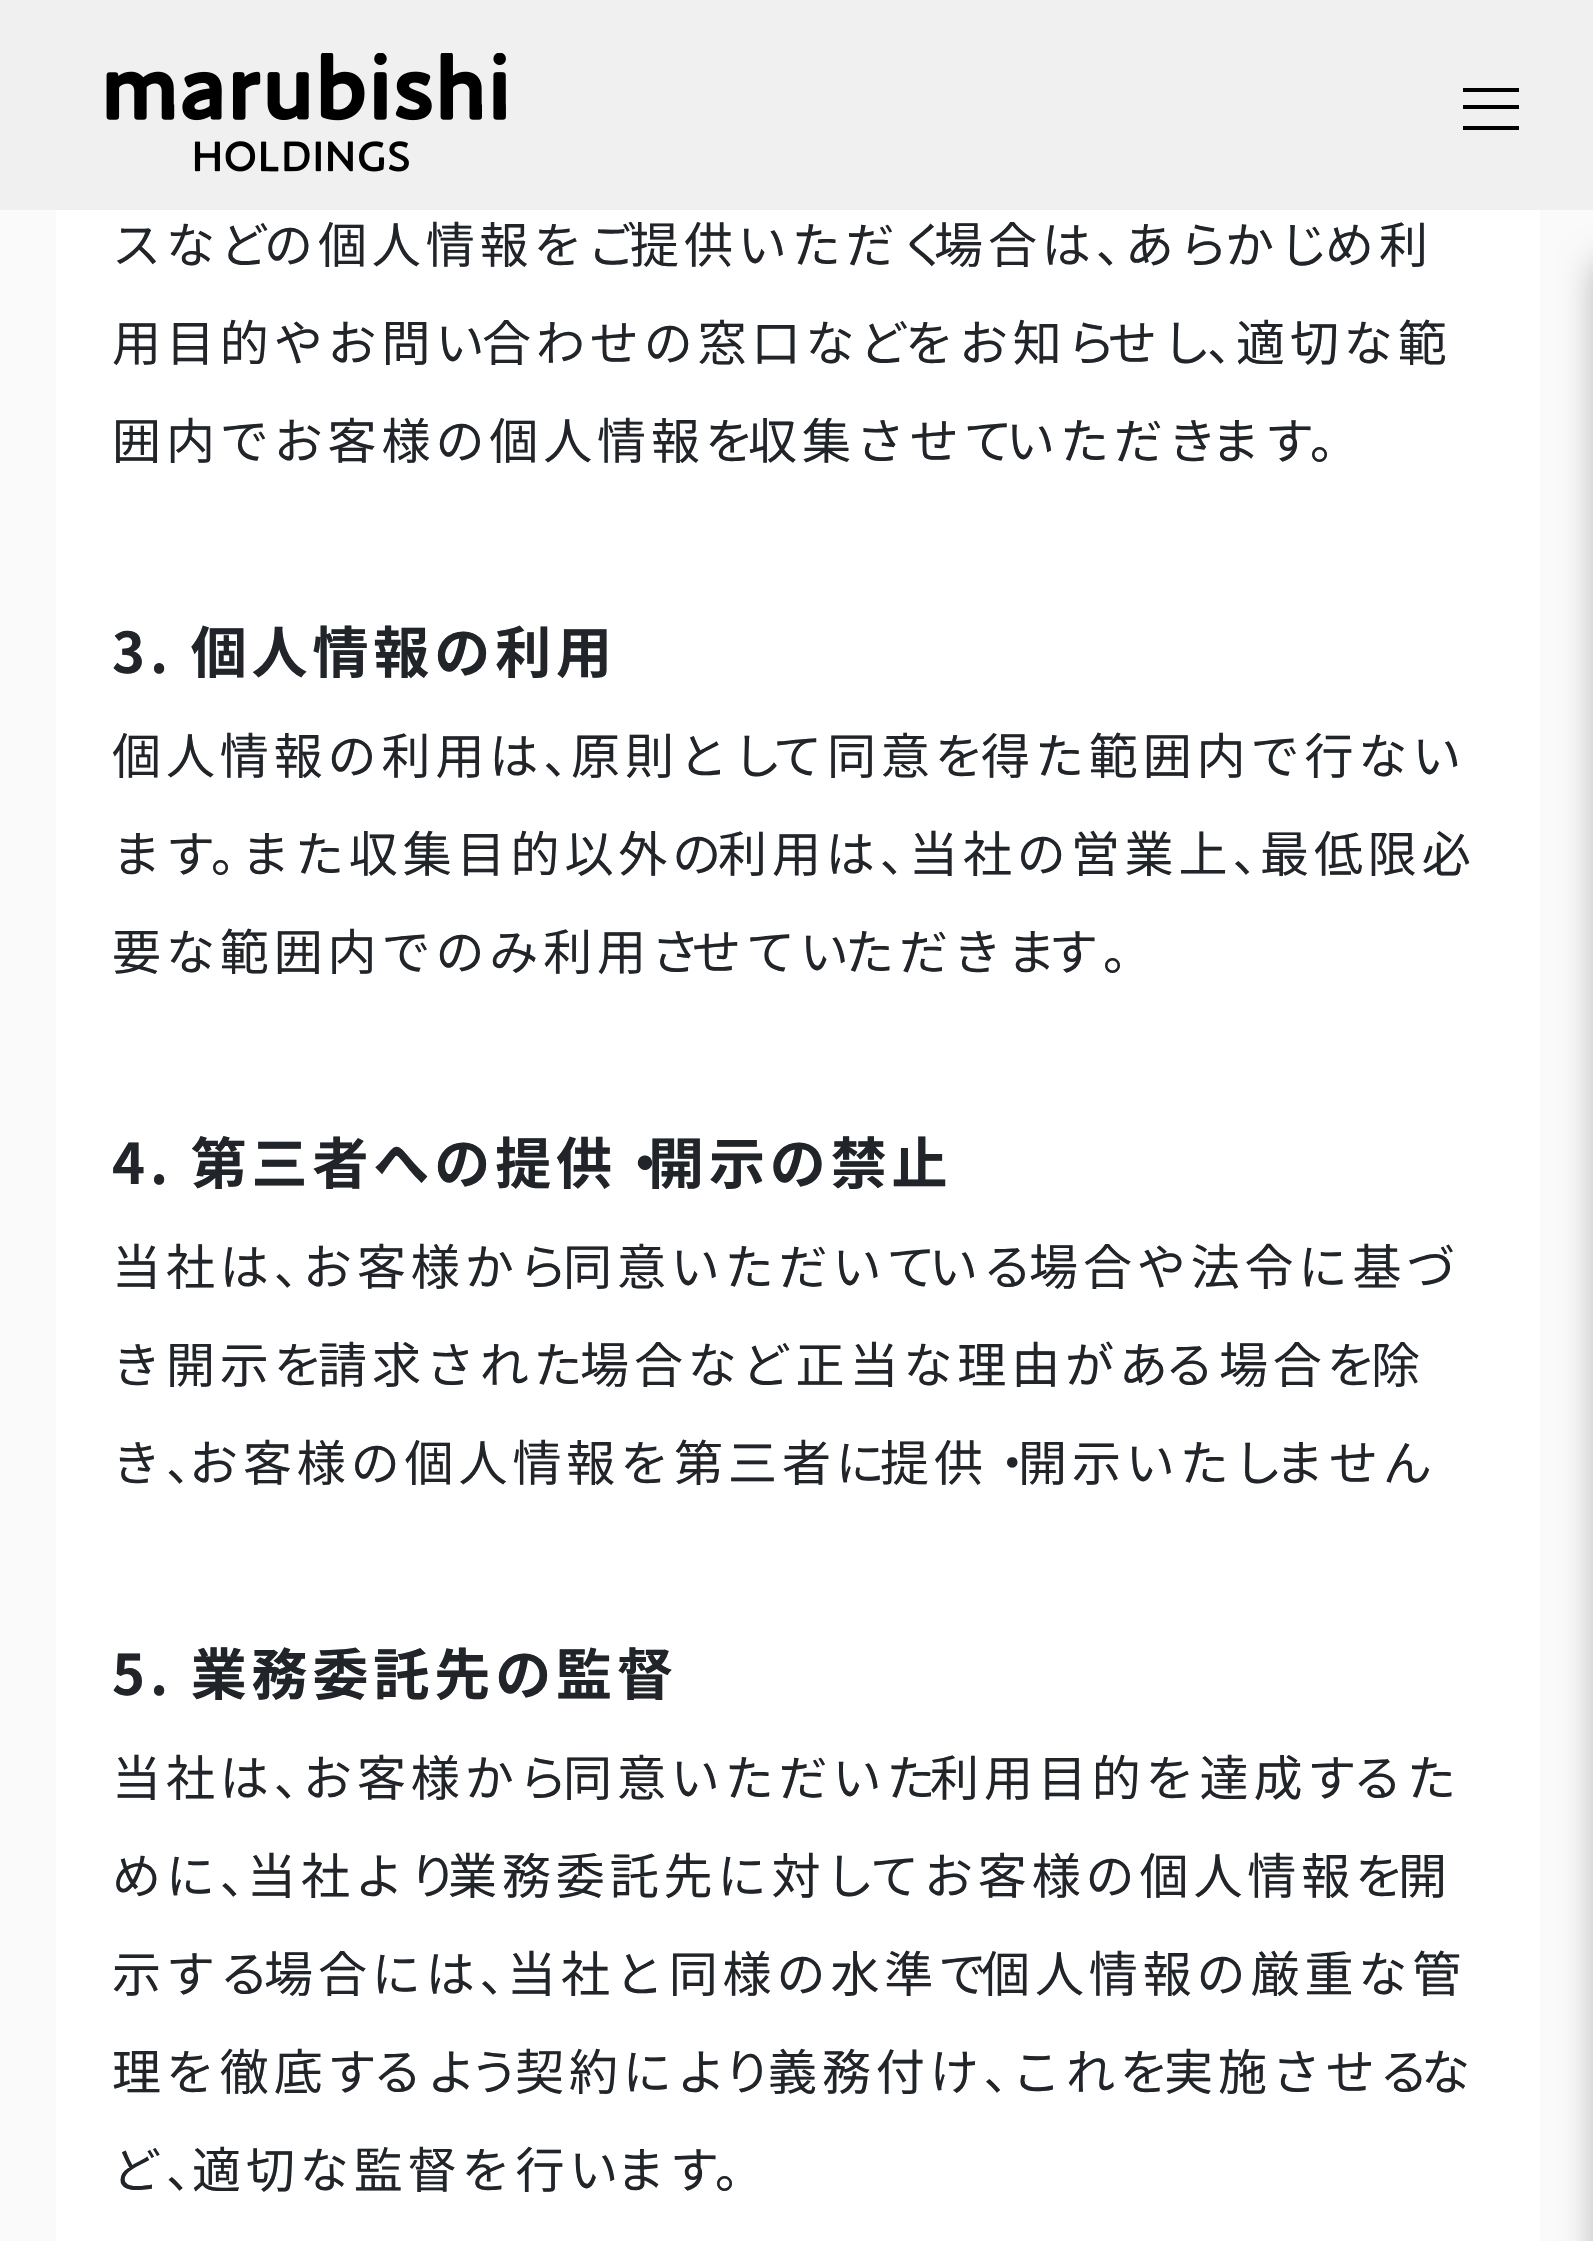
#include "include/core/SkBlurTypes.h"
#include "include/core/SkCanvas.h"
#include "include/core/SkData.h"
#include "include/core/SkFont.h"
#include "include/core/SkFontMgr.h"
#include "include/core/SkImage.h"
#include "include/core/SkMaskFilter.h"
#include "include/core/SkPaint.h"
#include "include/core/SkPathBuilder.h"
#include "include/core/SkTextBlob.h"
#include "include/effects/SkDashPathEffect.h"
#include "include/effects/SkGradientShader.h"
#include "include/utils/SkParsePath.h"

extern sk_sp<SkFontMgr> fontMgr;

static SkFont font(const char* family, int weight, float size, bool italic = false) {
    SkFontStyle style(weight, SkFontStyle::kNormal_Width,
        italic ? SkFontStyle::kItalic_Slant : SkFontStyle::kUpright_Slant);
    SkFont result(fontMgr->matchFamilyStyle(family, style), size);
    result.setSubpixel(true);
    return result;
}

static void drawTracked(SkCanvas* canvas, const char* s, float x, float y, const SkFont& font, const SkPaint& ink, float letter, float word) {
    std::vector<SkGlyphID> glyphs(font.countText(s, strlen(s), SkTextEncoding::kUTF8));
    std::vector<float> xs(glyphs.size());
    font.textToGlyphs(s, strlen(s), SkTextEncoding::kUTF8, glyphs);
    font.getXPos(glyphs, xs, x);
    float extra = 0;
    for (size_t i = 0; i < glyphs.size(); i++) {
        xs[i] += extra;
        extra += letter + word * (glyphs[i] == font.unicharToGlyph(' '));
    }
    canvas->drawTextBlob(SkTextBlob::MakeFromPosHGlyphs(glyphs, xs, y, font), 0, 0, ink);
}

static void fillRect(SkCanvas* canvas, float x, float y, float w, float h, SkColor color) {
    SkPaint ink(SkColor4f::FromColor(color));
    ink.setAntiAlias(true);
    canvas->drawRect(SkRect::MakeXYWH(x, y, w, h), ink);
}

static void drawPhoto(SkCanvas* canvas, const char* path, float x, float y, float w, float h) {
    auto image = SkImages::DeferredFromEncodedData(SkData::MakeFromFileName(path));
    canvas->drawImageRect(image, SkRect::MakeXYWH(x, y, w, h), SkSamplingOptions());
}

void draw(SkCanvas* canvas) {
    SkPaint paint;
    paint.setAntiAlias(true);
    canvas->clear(0xFFFAFAFA);
    fillRect(canvas, 0, 0, 1593, 210, 0xFFF0F0F0);
    drawPhoto(canvas, "assets/img1.png", 106, 53, 400, 119);
    fillRect(canvas, 1463, 88, 56, 4, 0xFF000000);
    fillRect(canvas, 1463, 105, 56, 4, 0xFF000000);
    fillRect(canvas, 1463, 126, 56, 4, 0xFF000000);
    paint.setColor(0x4D000000);
    paint.setMaskFilter(SkMaskFilter::MakeBlur(kNormal_SkBlurStyle, 17.5f));
    canvas->drawRect(SkRect::MakeXYWH(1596, 263, 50, 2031), paint);
    paint.setMaskFilter(nullptr);
    fillRect(canvas, 56, 210, 1484, 2031, 0xFFFFFFFF);
    SkFont font1 = font("Noto Sans JP", 100, 49);
    paint.setColor(0xFF212529);
    drawTracked(canvas, "スなど", 112, 263, font1, paint, 4.9f, 0);
    drawTracked(canvas, "の個人情報をご", 264, 263, font1, paint, 4.9f, 0);
    drawTracked(canvas, "提供いただく", 630, 263, font1, paint, 4.9f, 0);
    drawTracked(canvas, "場合は、", 934, 263, font1, paint, 4.9f, 0);
    drawTracked(canvas, "あら", 1125, 263, font1, paint, 4.9f, 0);
    drawTracked(canvas, "かじ", 1225, 263, font1, paint, 4.9f, 0);
    drawTracked(canvas, "め利", 1325, 263, font1, paint, 4.9f, 0);
    drawTracked(canvas, "用目的やお問い", 112, 361, font1, paint, 4.9f, 0);
    drawTracked(canvas, "合わせの窓口など", 482, 361, font1, paint, 4.9f, 0);
    drawTracked(canvas, "をお知ら", 905, 361, font1, paint, 4.9f, 0);
    drawTracked(canvas, "せし", 1108, 361, font1, paint, 4.9f, 0);
    drawTracked(canvas, "、", 1207, 361, font1, paint, 4.9f, 0);
    drawTracked(canvas, "適切な範", 1236, 361, font1, paint, 4.9f, 0);
    drawTracked(canvas, "囲内でお客様の個人情報を", 112, 459, font1, paint, 4.9f, 0);
    drawTracked(canvas, "収集させて", 748, 459, font1, paint, 4.9f, 0);
    drawTracked(canvas, "いただき", 1006, 459, font1, paint, 4.9f, 0);
    drawTracked(canvas, "ます", 1211, 459, font1, paint, 4.9f, 0);
    drawTracked(canvas, "。", 1310, 459, font1, paint, 4.9f, 0);
    SkFont font2 = font("Noto Sans JP", 700, 56);
    drawTracked(canvas, "3. 個人情報の利用", 112, 673, font2, paint, 4.9f, 0);
    drawTracked(canvas, "個人情報の利用は、", 112, 774, font1, paint, 4.9f, 0);
    drawTracked(canvas, "原則とし", 571, 774, font1, paint, 4.9f, 0);
    drawTracked(canvas, "て同意を", 773, 774, font1, paint, 4.9f, 0);
    drawTracked(canvas, "得た範囲内で行ない", 981, 774, font1, paint, 4.9f, 0);
    drawTracked(canvas, "ます", 112, 872, font1, paint, 4.9f, 0);
    drawTracked(canvas, "。", 211, 872, font1, paint, 4.9f, 0);
    drawTracked(canvas, "また収集目的以外の", 241, 872, font1, paint, 4.9f, 0);
    drawTracked(canvas, "利用は、", 718, 872, font1, paint, 4.9f, 0);
    drawTracked(canvas, "当社の営業上、", 909, 872, font1, paint, 4.9f, 0);
    drawTracked(canvas, "最低限必", 1260, 872, font1, paint, 4.9f, 0);
    drawTracked(canvas, "要な範囲内でのみ利用さ", 112, 970, font1, paint, 4.9f, 0);
    drawTracked(canvas, "せてい", 692, 970, font1, paint, 4.9f, 0);
    drawTracked(canvas, "ただきま", 845, 970, font1, paint, 4.9f, 0);
    drawTracked(canvas, "す。", 1049, 970, font1, paint, 4.9f, 0);
    drawTracked(canvas, "4. 第三者への提供・", 112, 1184, font2, paint, 4.9f, 0);
    drawTracked(canvas, "開示の禁止", 648, 1184, font2, paint, 4.9f, 0);
    drawTracked(canvas, "当社は、", 112, 1285, font1, paint, 4.9f, 0);
    drawTracked(canvas, "お客様から", 303, 1285, font1, paint, 4.9f, 0);
    drawTracked(canvas, "同意いただいて", 563, 1285, font1, paint, 4.9f, 0);
    drawTracked(canvas, "いる", 929, 1285, font1, paint, 4.9f, 0);
    drawTracked(canvas, "場合や法令に基づ", 1029, 1285, font1, paint, 4.9f, 0);
    drawTracked(canvas, "き開示を", 112, 1383, font1, paint, 4.9f, 0);
    drawTracked(canvas, "請求された", 318, 1383, font1, paint, 4.9f, 0);
    drawTracked(canvas, "場合など正当な理由があ", 580, 1383, font1, paint, 4.9f, 0);
    drawTracked(canvas, "る場合を", 1165, 1383, font1, paint, 4.9f, 0);
    drawTracked(canvas, "除", 1371, 1383, font1, paint, 4.9f, 0);
    drawTracked(canvas, "き、", 112, 1481, font1, paint, 4.9f, 0);
    drawTracked(canvas, "お客様の個人情報を第三者に", 189, 1481, font1, paint, 4.9f, 0);
    drawTracked(canvas, "提供・", 880, 1481, font1, paint, 4.9f, 0);
    drawTracked(canvas, "開示いたし", 1018, 1481, font1, paint, 4.9f, 0);
    drawTracked(canvas, "ません", 1275, 1481, font1, paint, 4.9f, 0);
    drawTracked(canvas, "5. 業務委託先の監督", 112, 1695, font2, paint, 4.9f, 0);
    drawTracked(canvas, "当社は、", 112, 1796, font1, paint, 4.9f, 0);
    drawTracked(canvas, "お客様から", 303, 1796, font1, paint, 4.9f, 0);
    drawTracked(canvas, "同意いただいた", 563, 1796, font1, paint, 4.9f, 0);
    drawTracked(canvas, "利用目的を達成す", 930, 1796, font1, paint, 4.9f, 0);
    drawTracked(canvas, "るた", 1353, 1796, font1, paint, 4.9f, 0);
    drawTracked(canvas, "めに、", 112, 1894, font1, paint, 4.9f, 0);
    drawTracked(canvas, "当社より", 247, 1894, font1, paint, 4.9f, 0);
    drawTracked(canvas, "業務委託先に対し", 448, 1894, font1, paint, 4.9f, 0);
    drawTracked(canvas, "てお客様の個人情報を", 870, 1894, font1, paint, 4.9f, 0);
    drawTracked(canvas, "開", 1398, 1894, font1, paint, 4.9f, 0);
    drawTracked(canvas, "示する", 112, 1992, font1, paint, 4.9f, 0);
    drawTracked(canvas, "場合には、", 264, 1992, font1, paint, 4.9f, 0);
    drawTracked(canvas, "当社と同様の水準で", 507, 1992, font1, paint, 4.9f, 0);
    drawTracked(canvas, "個人情報の厳重な管", 981, 1992, font1, paint, 4.9f, 0);
    drawTracked(canvas, "理を徹底す", 112, 2090, font1, paint, 4.9f, 0);
    drawTracked(canvas, "るよ", 373, 2090, font1, paint, 4.9f, 0);
    drawTracked(canvas, "う", 470, 2090, font1, paint, 4.9f, 0);
    drawTracked(canvas, "契約によ", 515, 2090, font1, paint, 4.9f, 0);
    drawTracked(canvas, "り", 723, 2090, font1, paint, 4.9f, 0);
    drawTracked(canvas, "義務付け、", 768, 2090, font1, paint, 4.9f, 0);
    drawTracked(canvas, "これを", 1012, 2090, font1, paint, 4.9f, 0);
    drawTracked(canvas, "実施させる", 1164, 2090, font1, paint, 4.9f, 0);
    drawTracked(canvas, "な", 1421, 2090, font1, paint, 4.9f, 0);
    drawTracked(canvas, "ど、", 112, 2188, font1, paint, 4.9f, 0);
    drawTracked(canvas, "適切な監督を行い", 192, 2188, font1, paint, 4.9f, 0);
    drawTracked(canvas, "ます", 616, 2188, font1, paint, 4.9f, 0);
    drawTracked(canvas, "。", 715, 2188, font1, paint, 4.9f, 0);
}
